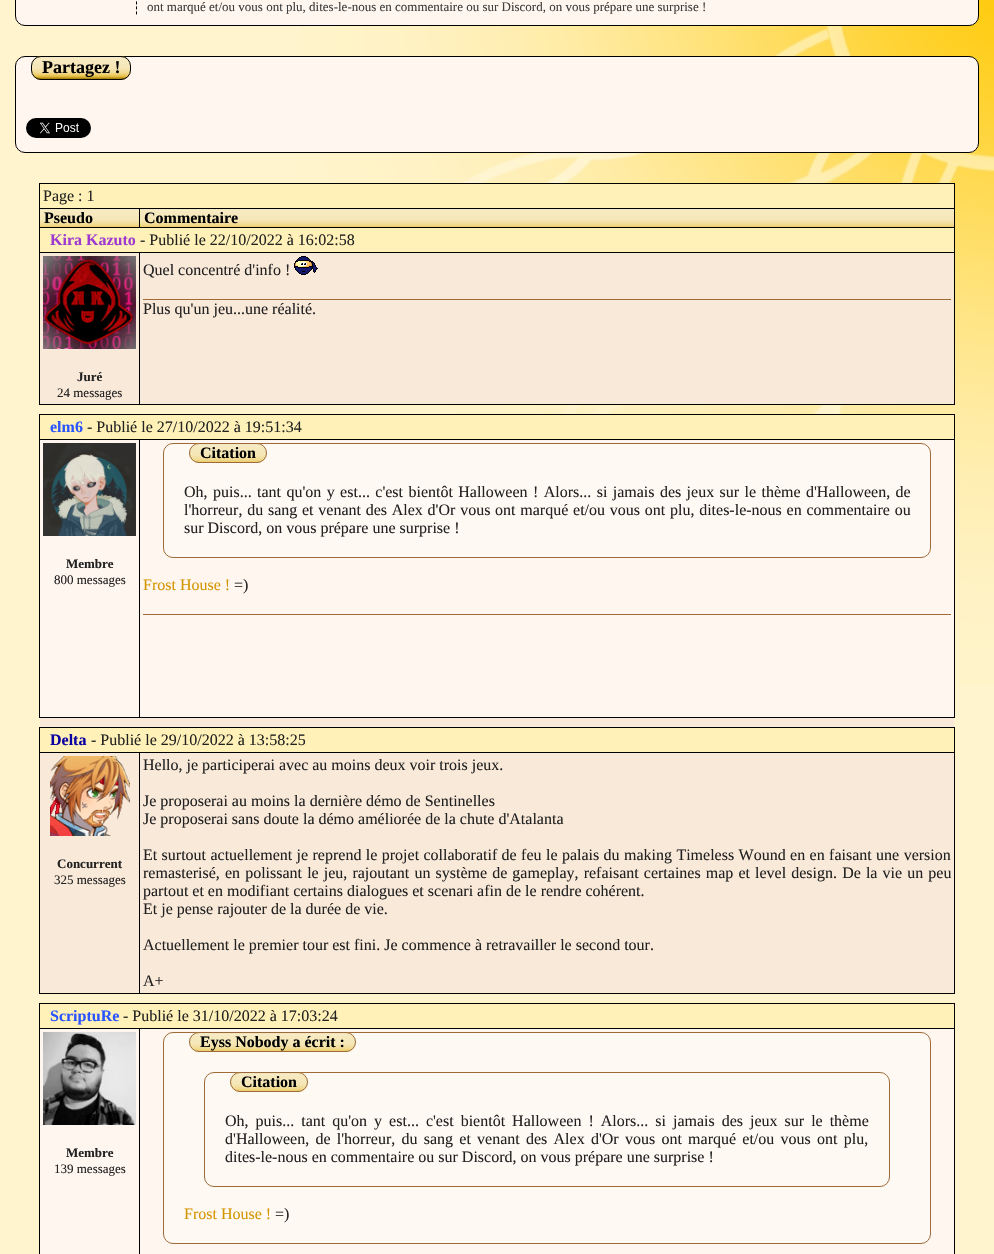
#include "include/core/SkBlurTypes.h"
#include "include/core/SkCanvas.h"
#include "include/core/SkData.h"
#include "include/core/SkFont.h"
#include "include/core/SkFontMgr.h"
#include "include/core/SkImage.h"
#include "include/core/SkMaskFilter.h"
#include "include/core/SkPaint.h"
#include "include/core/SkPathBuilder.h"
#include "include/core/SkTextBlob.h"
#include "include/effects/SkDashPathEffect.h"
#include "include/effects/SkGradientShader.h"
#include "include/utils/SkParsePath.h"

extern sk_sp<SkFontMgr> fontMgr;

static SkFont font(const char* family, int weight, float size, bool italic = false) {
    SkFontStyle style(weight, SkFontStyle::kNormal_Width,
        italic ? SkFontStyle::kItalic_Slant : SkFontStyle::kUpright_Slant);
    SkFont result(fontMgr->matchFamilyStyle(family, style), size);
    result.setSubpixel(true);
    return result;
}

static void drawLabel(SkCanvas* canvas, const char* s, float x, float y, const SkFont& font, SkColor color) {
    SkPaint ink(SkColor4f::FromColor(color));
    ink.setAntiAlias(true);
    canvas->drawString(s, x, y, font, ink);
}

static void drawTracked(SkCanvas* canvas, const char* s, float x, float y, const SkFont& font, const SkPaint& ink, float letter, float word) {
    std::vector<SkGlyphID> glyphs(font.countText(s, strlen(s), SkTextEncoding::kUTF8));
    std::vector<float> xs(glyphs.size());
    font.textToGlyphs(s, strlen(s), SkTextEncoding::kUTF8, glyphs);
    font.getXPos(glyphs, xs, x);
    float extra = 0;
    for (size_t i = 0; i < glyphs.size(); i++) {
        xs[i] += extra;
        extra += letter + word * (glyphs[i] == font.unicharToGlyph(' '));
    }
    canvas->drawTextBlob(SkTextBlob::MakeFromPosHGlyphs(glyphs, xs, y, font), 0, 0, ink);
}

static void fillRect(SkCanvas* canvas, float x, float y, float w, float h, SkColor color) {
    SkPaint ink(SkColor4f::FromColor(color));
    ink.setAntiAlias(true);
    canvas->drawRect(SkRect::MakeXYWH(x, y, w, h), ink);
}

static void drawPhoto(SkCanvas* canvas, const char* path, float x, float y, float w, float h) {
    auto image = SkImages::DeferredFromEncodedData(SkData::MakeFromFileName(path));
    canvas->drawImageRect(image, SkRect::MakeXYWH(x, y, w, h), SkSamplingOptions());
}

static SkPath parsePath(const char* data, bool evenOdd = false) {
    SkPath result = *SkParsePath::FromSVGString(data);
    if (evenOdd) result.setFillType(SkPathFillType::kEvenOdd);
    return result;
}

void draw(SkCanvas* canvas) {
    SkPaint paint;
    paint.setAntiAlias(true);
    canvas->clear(0xFFFFF4CE);
    drawPhoto(canvas, "assets/img1.png", 300, 0, 694, 686);
    paint.setColor(0xFFFFF6EF);
    canvas->drawRoundRect(SkRect::MakeXYWH(15.5f, -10.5f, 963, 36), 9.5f, 9.5f, paint);
    paint.setStroke(true);
    paint.setStrokeWidth(1);
    paint.setColor(0xFF000000);
    canvas->drawRoundRect(SkRect::MakeXYWH(15.5f, -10.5f, 963, 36), 9.5f, 9.5f, paint);
    paint.setPathEffect(SkDashPathEffect::Make({{3, 1.98f}}, 0));
    canvas->drawPath(parsePath("M136.5-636V15"), paint);
    paint.setPathEffect(nullptr);
    SkFont font1 = font("Liberation Serif", 400, 13);
    drawLabel(canvas, "ont marqué et/ou vous ont plu, dites-le-nous en commentaire ou sur Discord, on vous prépare une surprise !", 147, 11, font1, 0xFF3F3F3F);
    paint.setStroke(false);
    paint.setColor(0xFFFFF6EF);
    canvas->drawRoundRect(SkRect::MakeXYWH(15.5f, 56.5f, 963, 96), 9.5f, 9.5f, paint);
    paint.setStroke(true);
    paint.setColor(0xFF000000);
    canvas->drawRoundRect(SkRect::MakeXYWH(15.5f, 56.5f, 963, 96), 9.5f, 9.5f, paint);
    drawPhoto(canvas, "assets/img2.png", 31, 56, 100, 24);
    canvas->drawRoundRect(SkRect::MakeXYWH(31.5f, 56.5f, 99, 23), 9.5f, 9.5f, paint);
    SkFont font2 = font("Liberation Serif", 700, 18);
    drawLabel(canvas, "Partagez !", 42, 73, font2, 0xFF000000);
    drawPhoto(canvas, "assets/img3.png", 26, 118, 65, 20);
    fillRect(canvas, 39, 183, 916, 1, 0xFF000000);
    fillRect(canvas, 40, 184, 914, 24, 0xFFFFF1B7);
    SkFont font3 = font("Liberation Serif", 400, 16);
    drawLabel(canvas, "Page : 1", 43, 201, font3, 0xFF222222);
    drawPhoto(canvas, "assets/img4.png", 40, 209, 99, 18);
    fillRect(canvas, 139, 208, 816, 1, 0xFF000000);
    fillRect(canvas, 39, 227, 916, 1, 0xFF000000);
    fillRect(canvas, 139, 208, 1, 20, 0xFF000000);
    fillRect(canvas, 39, 208, 101, 1, 0xFF000000);
    fillRect(canvas, 139, 252, 816, 1, 0xFF000000);
    fillRect(canvas, 40, 253, 914, 151, 0xFFF9E9D9);
    fillRect(canvas, 39, 404, 916, 1, 0xFF000000);
    fillRect(canvas, 139, 252, 1, 153, 0xFF000000);
    fillRect(canvas, 39, 252, 101, 1, 0xFF000000);
    fillRect(canvas, 39, 252, 1, 153, 0xFF000000);
    fillRect(canvas, 39, 227, 1, 26, 0xFF000000);
    fillRect(canvas, 39, 183, 1, 45, 0xFF000000);
    SkFont font4 = font("Liberation Serif", 700, 16);
    drawLabel(canvas, "Pseudo", 44, 223, font4, 0xFF000000);
    drawPhoto(canvas, "assets/img5.png", 140, 209, 814, 18);
    fillRect(canvas, 954, 252, 1, 153, 0xFF000000);
    fillRect(canvas, 954, 227, 1, 26, 0xFF000000);
    fillRect(canvas, 954, 183, 1, 45, 0xFF000000);
    drawLabel(canvas, "Commentaire", 144, 223, font4, 0xFF000000);
    fillRect(canvas, 40, 228, 914, 24, 0xFFFFF1B7);
    drawLabel(canvas, "Kira Kazuto", 50, 245, font4, 0xFF9F3AD1);
    drawLabel(canvas, "- Publié le 22/10/2022 à 16:02:58", 140, 245, font3, 0xFF222222);
    drawLabel(canvas, "Quel concentré d'info !", 143, 275, font3, 0xFF222222);
    drawPhoto(canvas, "assets/img6.png", 294, 256, 24, 19);
    fillRect(canvas, 143, 299, 808, 1, 0xFF9D6B39);
    drawLabel(canvas, "Plus qu'un jeu...une réalité.", 143, 314, font3, 0xFF222222);
    drawPhoto(canvas, "assets/img7.png", 43, 256, 93, 93);
    SkFont font5 = font("Liberation Serif", 700, 13);
    drawLabel(canvas, "Juré", 77, 381, font5, 0xFF222222);
    drawLabel(canvas, "24 messages", 57, 397, font1, 0xFF222222);
    fillRect(canvas, 39, 414, 916, 1, 0xFF000000);
    fillRect(canvas, 40, 415, 914, 24, 0xFFFFF1B7);
    drawLabel(canvas, "elm6", 50, 432, font4, 0xFF2954FF);
    drawLabel(canvas, "- Publié le 27/10/2022 à 19:51:34", 87, 432, font3, 0xFF222222);
    fillRect(canvas, 40, 440, 914, 277, 0xFFFFF6EF);
    fillRect(canvas, 139, 439, 816, 1, 0xFF000000);
    fillRect(canvas, 39, 717, 916, 1, 0xFF000000);
    fillRect(canvas, 139, 439, 1, 279, 0xFF000000);
    fillRect(canvas, 39, 439, 101, 1, 0xFF000000);
    fillRect(canvas, 39, 414, 1, 304, 0xFF000000);
    drawPhoto(canvas, "assets/img8.png", 43, 443, 93, 93);
    drawLabel(canvas, "Membre", 66, 568, font5, 0xFF222222);
    drawLabel(canvas, "800 messages", 54, 584, font1, 0xFF222222);
    fillRect(canvas, 954, 414, 1, 304, 0xFF000000);
    paint.setStroke(false);
    paint.setColor(0xFFFFF9F4);
    canvas->drawRoundRect(SkRect::MakeXYWH(163.5f, 443.5f, 767, 114), 9.5f, 9.5f, paint);
    paint.setStroke(true);
    paint.setColor(0xFF9D6B39);
    canvas->drawRoundRect(SkRect::MakeXYWH(163.5f, 443.5f, 767, 114), 9.5f, 9.5f, paint);
    drawPhoto(canvas, "assets/img9.png", 189, 443, 78, 20);
    canvas->drawRoundRect(SkRect::MakeXYWH(189.5f, 443.5f, 77, 19), 9.5f, 9.5f, paint);
    drawLabel(canvas, "Citation", 200, 458, font4, 0xFF000000);
    paint.setStroke(false);
    paint.setColor(0xFF222222);
    drawTracked(canvas, "Oh, puis... tant qu'on y est... c'est bientôt Halloween ! Alors... si jamais des jeux sur le thème d'Halloween, de", 184, 497, font3, paint, 0, 1.4f);
    drawTracked(canvas, "l'horreur, du sang et venant des Alex d'Or vous ont marqué et/ou vous ont plu, dites-le-nous en commentaire ou", 184, 515, font3, paint, 0, 0.75f);
    drawLabel(canvas, "sur Discord, on vous prépare une surprise !", 184, 533, font3, 0xFF222222);
    drawLabel(canvas, "Frost House !", 143, 590, font3, 0xFFD39501);
    drawLabel(canvas, "=)", 234, 590, font3, 0xFF222222);
    fillRect(canvas, 143, 614, 808, 1, 0xFF9D6B39);
    fillRect(canvas, 40, 718, 914, 9, 0xFFF9E9D9);
    fillRect(canvas, 39, 727, 916, 1, 0xFF000000);
    fillRect(canvas, 40, 728, 914, 24, 0xFFFFF1B7);
    drawLabel(canvas, "Delta", 50, 745, font4, 0xFF0B00A1);
    drawLabel(canvas, "- Publié le 29/10/2022 à 13:58:25", 91, 745, font3, 0xFF222222);
    fillRect(canvas, 40, 753, 914, 240, 0xFFF9E9D9);
    fillRect(canvas, 139, 752, 816, 1, 0xFF000000);
    fillRect(canvas, 39, 993, 916, 1, 0xFF000000);
    fillRect(canvas, 139, 752, 1, 242, 0xFF000000);
    fillRect(canvas, 39, 752, 101, 1, 0xFF000000);
    fillRect(canvas, 39, 727, 1, 267, 0xFF000000);
    drawPhoto(canvas, "assets/img10.png", 50, 756, 80, 80);
    drawLabel(canvas, "Concurrent", 57, 868, font5, 0xFF222222);
    drawLabel(canvas, "325 messages", 54, 884, font1, 0xFF222222);
    fillRect(canvas, 954, 727, 1, 267, 0xFF000000);
    drawLabel(canvas, "Hello, je participerai avec au moins deux voir trois jeux.", 143, 770, font3, 0xFF222222);
    drawLabel(canvas, "Je proposerai au moins la dernière démo de Sentinelles", 143, 806, font3, 0xFF222222);
    drawLabel(canvas, "Je proposerai sans doute la démo améliorée de la chute d'Atalanta", 143, 824, font3, 0xFF222222);
    drawTracked(canvas, "Et surtout actuellement je reprend le projet collaboratif de feu le palais du making Timeless Wound en en faisant une version", 143, 860, font3, paint, 0, 0.4f);
    drawTracked(canvas, "remasterisé, en polissant le jeu, rajoutant un système de gameplay, refaisant certaines map et level design. De la vie un peu", 143, 878, font3, paint, 0, 1.1f);
    drawLabel(canvas, "partout et en modifiant certains dialogues et scenari afin de le rendre cohérent.", 143, 896, font3, 0xFF222222);
    drawLabel(canvas, "Et je pense rajouter de la durée de vie.", 143, 914, font3, 0xFF222222);
    drawLabel(canvas, "Actuellement le premier tour est fini. Je commence à retravailler le second tour.", 143, 950, font3, 0xFF222222);
    drawLabel(canvas, "A+", 143, 986, font3, 0xFF222222);
    fillRect(canvas, 39, 1003, 916, 1, 0xFF000000);
    fillRect(canvas, 40, 1004, 914, 24, 0xFFFFF1B7);
    drawLabel(canvas, "ScriptuRe", 50, 1021, font4, 0xFF2954FF);
    drawLabel(canvas, "- Publié le 31/10/2022 à 17:03:24", 123, 1021, font3, 0xFF222222);
    fillRect(canvas, 40, 1029, 914, 225, 0xFFFFF6EF);
    fillRect(canvas, 139, 1028, 816, 1, 0xFF000000);
    fillRect(canvas, 139, 1028, 1, 226, 0xFF000000);
    fillRect(canvas, 39, 1028, 101, 1, 0xFF000000);
    fillRect(canvas, 39, 1003, 1, 251, 0xFF000000);
    drawPhoto(canvas, "assets/img11.png", 43, 1032, 93, 93);
    drawLabel(canvas, "Membre", 66, 1157, font5, 0xFF222222);
    drawLabel(canvas, "139 messages", 54, 1173, font1, 0xFF222222);
    fillRect(canvas, 954, 1003, 1, 251, 0xFF000000);
    paint.setColor(0xFFFFF9F4);
    canvas->drawRoundRect(SkRect::MakeXYWH(163.5f, 1032.5f, 767, 211), 9.5f, 9.5f, paint);
    paint.setStroke(true);
    paint.setColor(0xFF9D6B39);
    canvas->drawRoundRect(SkRect::MakeXYWH(163.5f, 1032.5f, 767, 211), 9.5f, 9.5f, paint);
    drawPhoto(canvas, "assets/img12.png", 189, 1032, 167, 20);
    canvas->drawRoundRect(SkRect::MakeXYWH(189.5f, 1032.5f, 166, 19), 9.5f, 9.5f, paint);
    drawLabel(canvas, "Eyss Nobody a écrit :", 200, 1047, font4, 0xFF000000);
    canvas->drawRoundRect(SkRect::MakeXYWH(204.5f, 1072.5f, 685, 114), 9.5f, 9.5f, paint);
    drawPhoto(canvas, "assets/img13.png", 230, 1072, 78, 20);
    canvas->drawRoundRect(SkRect::MakeXYWH(230.5f, 1072.5f, 77, 19), 9.5f, 9.5f, paint);
    drawLabel(canvas, "Citation", 241, 1087, font4, 0xFF000000);
    paint.setStroke(false);
    paint.setColor(0xFF222222);
    drawTracked(canvas, "Oh, puis... tant qu'on y est... c'est bientôt Halloween ! Alors... si jamais des jeux sur le thème", 225, 1126, font3, paint, 0, 3);
    drawTracked(canvas, "d'Halloween, de l'horreur, du sang et venant des Alex d'Or vous ont marqué et/ou vous ont plu,", 225, 1144, font3, paint, 0, 2.25f);
    drawLabel(canvas, "dites-le-nous en commentaire ou sur Discord, on vous prépare une surprise !", 225, 1162, font3, 0xFF222222);
    drawLabel(canvas, "Frost House !", 184, 1219, font3, 0xFFD39501);
    drawLabel(canvas, "=)", 275, 1219, font3, 0xFF222222);
}
